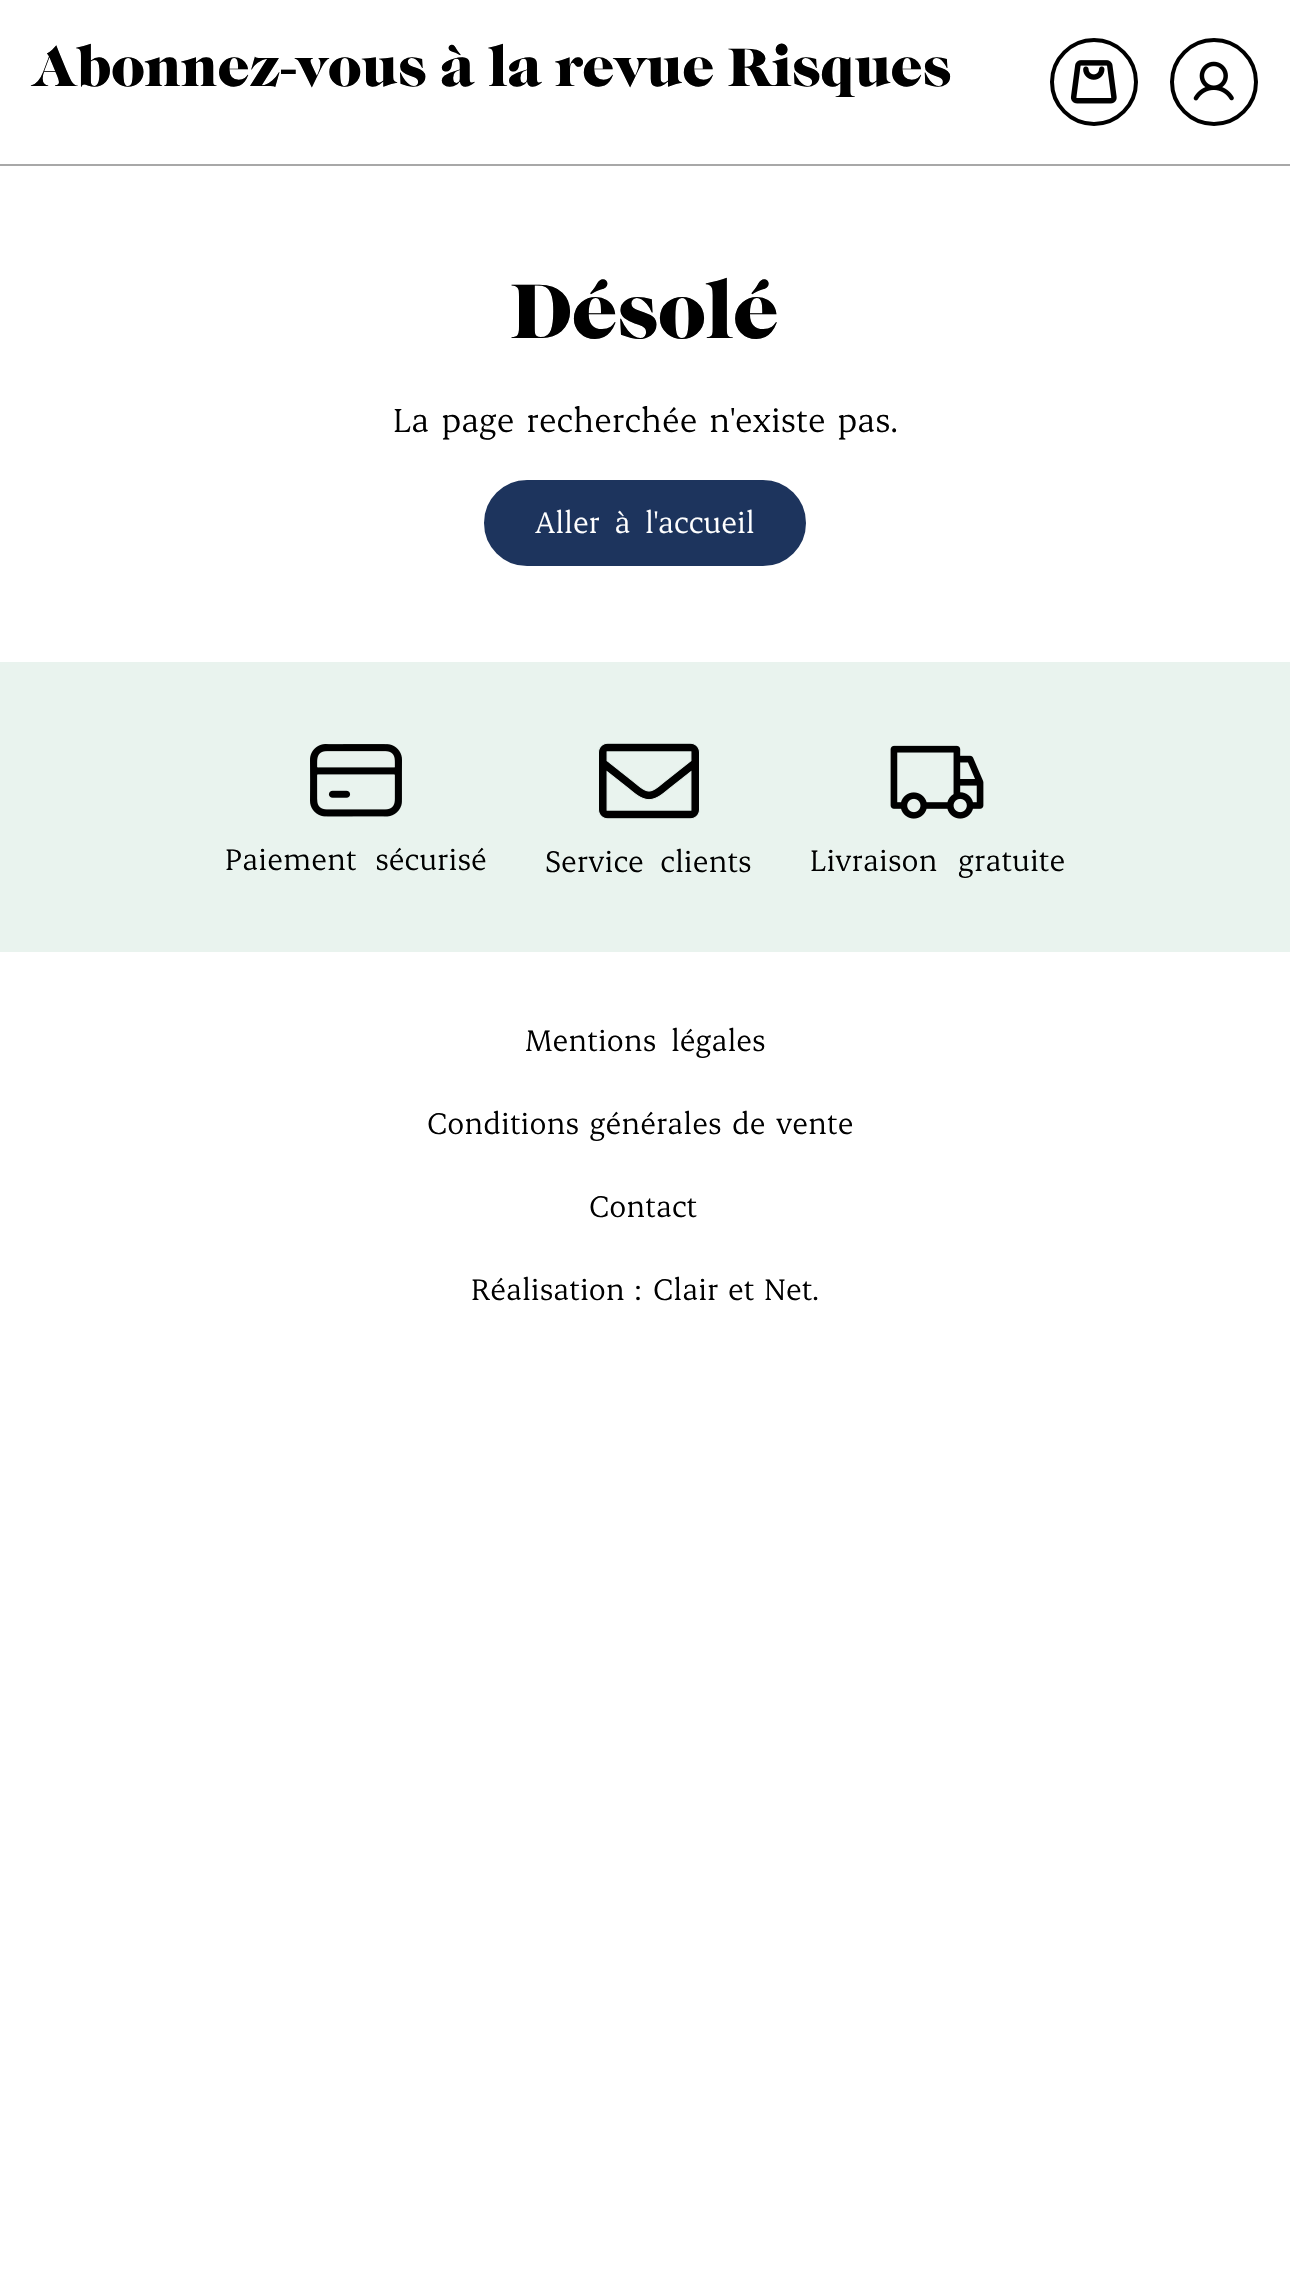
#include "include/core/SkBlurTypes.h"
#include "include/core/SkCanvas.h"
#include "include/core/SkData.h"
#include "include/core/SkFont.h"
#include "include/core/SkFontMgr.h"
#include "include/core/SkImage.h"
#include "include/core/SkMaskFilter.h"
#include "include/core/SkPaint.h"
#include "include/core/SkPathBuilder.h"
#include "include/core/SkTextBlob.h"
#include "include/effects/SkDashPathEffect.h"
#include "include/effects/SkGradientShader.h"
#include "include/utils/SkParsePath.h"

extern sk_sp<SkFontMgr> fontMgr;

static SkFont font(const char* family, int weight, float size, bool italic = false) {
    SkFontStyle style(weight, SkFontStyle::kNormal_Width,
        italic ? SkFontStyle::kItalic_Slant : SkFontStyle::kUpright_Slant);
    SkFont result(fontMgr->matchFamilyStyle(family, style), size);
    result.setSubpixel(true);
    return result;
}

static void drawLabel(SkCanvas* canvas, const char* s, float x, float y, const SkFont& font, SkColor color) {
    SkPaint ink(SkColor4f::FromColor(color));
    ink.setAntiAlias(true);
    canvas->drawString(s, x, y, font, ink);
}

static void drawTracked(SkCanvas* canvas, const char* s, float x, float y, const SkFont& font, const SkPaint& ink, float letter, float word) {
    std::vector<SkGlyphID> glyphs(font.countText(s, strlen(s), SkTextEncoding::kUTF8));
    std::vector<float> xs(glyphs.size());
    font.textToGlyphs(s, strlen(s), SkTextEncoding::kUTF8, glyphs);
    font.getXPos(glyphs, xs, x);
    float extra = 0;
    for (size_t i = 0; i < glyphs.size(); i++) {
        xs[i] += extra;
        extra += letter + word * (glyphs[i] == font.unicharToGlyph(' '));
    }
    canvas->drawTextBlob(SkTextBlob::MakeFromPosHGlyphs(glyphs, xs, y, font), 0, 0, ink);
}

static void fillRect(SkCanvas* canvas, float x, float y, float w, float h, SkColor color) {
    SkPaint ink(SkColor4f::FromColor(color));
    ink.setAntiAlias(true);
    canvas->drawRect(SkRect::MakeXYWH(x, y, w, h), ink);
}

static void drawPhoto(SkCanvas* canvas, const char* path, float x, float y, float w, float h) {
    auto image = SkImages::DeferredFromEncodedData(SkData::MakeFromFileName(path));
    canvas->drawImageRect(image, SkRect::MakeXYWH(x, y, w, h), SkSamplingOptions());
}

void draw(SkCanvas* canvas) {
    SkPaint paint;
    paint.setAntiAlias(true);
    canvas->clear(0xFFFFFFFF);
    fillRect(canvas, 0, 164, 1290, 2, 0xFFA8A8A8);
    SkFont font1 = font("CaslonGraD", 400, 56);
    drawLabel(canvas, "Abonnez-vous à la revue Risques", 32, 86, font1, 0xFF000000);
    paint.setStroke(true);
    paint.setStrokeWidth(4);
    paint.setColor(0xFF000000);
    canvas->drawCircle(1094, 82, 42, paint);
    drawPhoto(canvas, "assets/img1.png", 1070, 60, 47, 44);
    canvas->drawCircle(1214, 82, 42, paint);
    drawPhoto(canvas, "assets/img2.png", 1193, 61, 41, 40);
    SkFont font2 = font("CaslonGraD", 400, 80);
    drawLabel(canvas, "Désolé", 511, 338, font2, 0xFF000000);
    SkFont font3 = font("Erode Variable", 400, 38);
    paint.setStroke(false);
    drawTracked(canvas, "La page recherchée n'existe pas.", 393, 432, font3, paint, 0, 3.5f);
    paint.setColor(0xFF1D345D);
    canvas->drawRoundRect(SkRect::MakeXYWH(485, 481, 320, 84), 42, 42, paint);
    paint.setStroke(true);
    paint.setStrokeWidth(2);
    canvas->drawRoundRect(SkRect::MakeXYWH(485, 481, 320, 84), 42, 42, paint);
    SkFont font4 = font("Erode Variable", 400, 34);
    paint.setStroke(false);
    paint.setColor(0xFFFFFFFF);
    drawTracked(canvas, "Aller à l'accueil", 535, 533, font4, paint, 0, 7);
    fillRect(canvas, 0, 662, 1290, 290, 0xFFE9F3EE);
    drawPhoto(canvas, "assets/img3.png", 310, 744, 92, 73);
    paint.setColor(0xFF000000);
    drawTracked(canvas, "Paiement sécurisé", 225, 870, font4, paint, 0, 11);
    drawPhoto(canvas, "assets/img4.png", 598, 743, 102, 76);
    drawTracked(canvas, "Service clients", 545, 872, font4, paint, 0, 9);
    drawPhoto(canvas, "assets/img5.png", 890, 745, 94, 74);
    drawTracked(canvas, "Livraison gratuite", 810, 871, font4, paint, 0, 13);
    drawTracked(canvas, "Mentions légales", 525, 1051, font4, paint, 0, 7);
    drawTracked(canvas, "Conditions générales de vente", 427, 1134, font4, paint, 0, 3);
    drawLabel(canvas, "Contact", 589, 1217, font4, 0xFF000000);
    drawTracked(canvas, "Réalisation :", 471, 1300, font4, paint, 0, 2);
    drawTracked(canvas, "Clair et Net.", 653, 1300, font4, paint, 0, 2);
}
